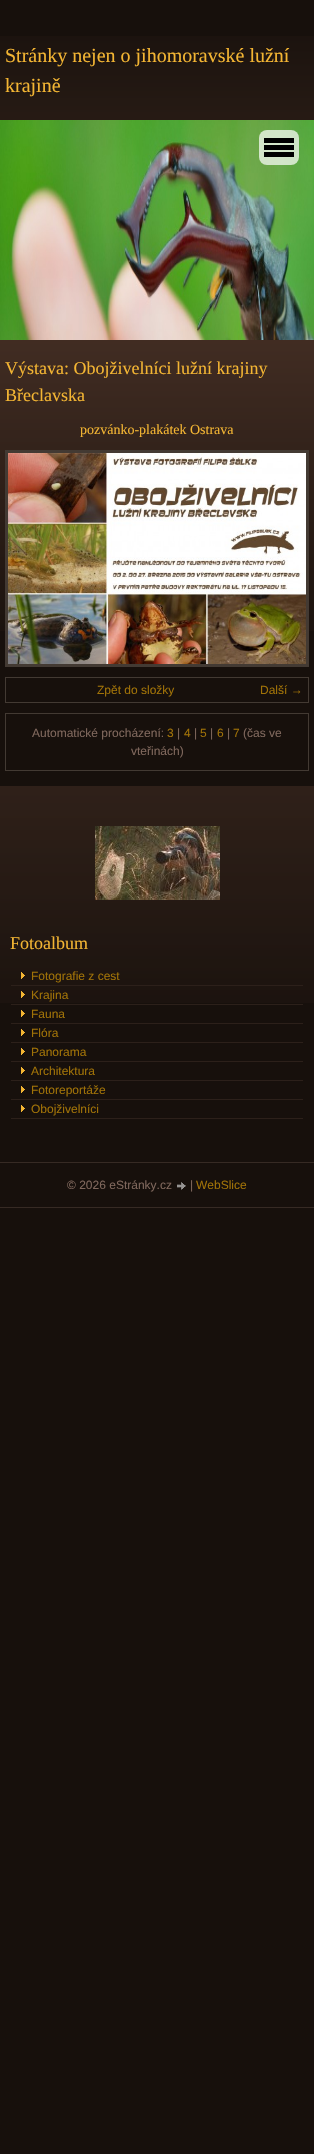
#include "include/core/SkBlurTypes.h"
#include "include/core/SkCanvas.h"
#include "include/core/SkData.h"
#include "include/core/SkFont.h"
#include "include/core/SkFontMgr.h"
#include "include/core/SkImage.h"
#include "include/core/SkMaskFilter.h"
#include "include/core/SkPaint.h"
#include "include/core/SkPathBuilder.h"
#include "include/core/SkTextBlob.h"
#include "include/effects/SkDashPathEffect.h"
#include "include/effects/SkGradientShader.h"
#include "include/utils/SkParsePath.h"

extern sk_sp<SkFontMgr> fontMgr;

static SkFont font(const char* family, int weight, float size, bool italic = false) {
    SkFontStyle style(weight, SkFontStyle::kNormal_Width,
        italic ? SkFontStyle::kItalic_Slant : SkFontStyle::kUpright_Slant);
    SkFont result(fontMgr->matchFamilyStyle(family, style), size);
    result.setSubpixel(true);
    return result;
}

static void drawLabel(SkCanvas* canvas, const char* s, float x, float y, const SkFont& font, SkColor color) {
    SkPaint ink(SkColor4f::FromColor(color));
    ink.setAntiAlias(true);
    canvas->drawString(s, x, y, font, ink);
}

static void fillRect(SkCanvas* canvas, float x, float y, float w, float h, SkColor color) {
    SkPaint ink(SkColor4f::FromColor(color));
    ink.setAntiAlias(true);
    canvas->drawRect(SkRect::MakeXYWH(x, y, w, h), ink);
}

static void fillRRect(SkCanvas* canvas, float x, float y, float w, float h, float radius, SkColor color) {
    SkPaint ink(SkColor4f::FromColor(color));
    ink.setAntiAlias(true);
    canvas->drawRoundRect(SkRect::MakeXYWH(x, y, w, h), radius, radius, ink);
}

static void drawPhoto(SkCanvas* canvas, const char* path, float x, float y, float w, float h) {
    auto image = SkImages::DeferredFromEncodedData(SkData::MakeFromFileName(path));
    canvas->drawImageRect(image, SkRect::MakeXYWH(x, y, w, h), SkSamplingOptions());
}

void draw(SkCanvas* canvas) {
    SkPaint paint;
    paint.setAntiAlias(true);
    canvas->clear(0xFF17100C);
    drawPhoto(canvas, "assets/img1.png", 0, 36, 314, 595);
    drawPhoto(canvas, "assets/img2.png", 0, 120, 314, 220);
    SkFont font1 = font("Liberation Serif", 400, 20);
    drawLabel(canvas, "Stránky nejen o jihomoravské lužní", 5, 62, font1, 0xFFF3B533);
    drawLabel(canvas, "krajině", 5, 92, font1, 0xFFF3B533);
    SkFont font2 = font("Liberation Serif", 400, 18);
    drawLabel(canvas, "Výstava: Obojživelníci lužní krajiny", 5, 374, font2, 0xFFF3B533);
    drawLabel(canvas, "Břeclavska", 5, 401, font2, 0xFFF3B533);
    SkFont font3 = font("Liberation Serif", 400, 14);
    drawLabel(canvas, "pozvánko-plakátek Ostrava", 80, 434, font3, 0xFFF3B533);
    paint.setStroke(true);
    paint.setStrokeWidth(3);
    paint.setColor(0xFF433A33);
    canvas->drawRect(SkRect::MakeXYWH(6.5f, 451.5f, 301, 214), paint);
    drawPhoto(canvas, "assets/img3.png", 8, 453, 298, 211);
    paint.setStrokeWidth(1);
    canvas->drawRect(SkRect::MakeXYWH(5.5f, 677.5f, 303, 25), paint);
    SkFont font4 = font("Liberation Sans", 400, 12);
    drawLabel(canvas, "Zpět do složky", 97, 694, font4, 0xFFA07207);
    drawLabel(canvas, "Další →", 260, 694, font4, 0xFFA07207);
    canvas->drawRect(SkRect::MakeXYWH(5.5f, 713.5f, 303, 57), paint);
    drawLabel(canvas, "Automatické procházení:", 32, 737, font4, 0xFF7F675C);
    drawLabel(canvas, "3", 167, 737, font4, 0xFFA07207);
    drawLabel(canvas, "|", 177, 737, font4, 0xFF7F675C);
    drawLabel(canvas, "4", 184, 737, font4, 0xFFA07207);
    drawLabel(canvas, "|", 194, 737, font4, 0xFF7F675C);
    drawLabel(canvas, "5", 200, 737, font4, 0xFFA07207);
    drawLabel(canvas, "|", 210, 737, font4, 0xFF7F675C);
    drawLabel(canvas, "6", 217, 737, font4, 0xFFA07207);
    drawLabel(canvas, "|", 227, 737, font4, 0xFF7F675C);
    drawLabel(canvas, "7", 233, 737, font4, 0xFFA07207);
    drawLabel(canvas, "(čas ve", 243, 737, font4, 0xFF7F675C);
    drawLabel(canvas, "vteřinách)", 131, 755, font4, 0xFF7F675C);
    drawPhoto(canvas, "assets/img4.png", 0, 786, 314, 217);
    drawPhoto(canvas, "assets/img5.png", 95, 826, 125, 74);
    drawLabel(canvas, "Fotoalbum", 10, 949, font2, 0xFFF3B533);
    drawPhoto(canvas, "assets/img6.png", 21, 972, 4, 7);
    fillRect(canvas, 11, 985, 292, 1, 0xFF2C201A);
    drawLabel(canvas, "Fotografie z cest", 31, 980, font4, 0xFFA07207);
    drawPhoto(canvas, "assets/img7.png", 21, 991, 4, 7);
    fillRect(canvas, 11, 1004, 292, 1, 0xFF2C201A);
    drawLabel(canvas, "Krajina", 31, 999, font4, 0xFFA07207);
    drawPhoto(canvas, "assets/img8.png", 21, 1010, 4, 7);
    fillRect(canvas, 11, 1023, 292, 1, 0xFF2C201A);
    drawLabel(canvas, "Fauna", 31, 1018, font4, 0xFFA07207);
    drawPhoto(canvas, "assets/img8.png", 21, 1029, 4, 7);
    fillRect(canvas, 11, 1042, 292, 1, 0xFF2C201A);
    drawLabel(canvas, "Flóra", 31, 1037, font4, 0xFFA07207);
    drawPhoto(canvas, "assets/img8.png", 21, 1048, 4, 7);
    fillRect(canvas, 11, 1061, 292, 1, 0xFF2C201A);
    drawLabel(canvas, "Panorama", 31, 1056, font4, 0xFFA07207);
    drawPhoto(canvas, "assets/img8.png", 21, 1067, 4, 7);
    fillRect(canvas, 11, 1080, 292, 1, 0xFF2C201A);
    drawLabel(canvas, "Architektura", 31, 1075, font4, 0xFFA07207);
    drawPhoto(canvas, "assets/img8.png", 21, 1086, 4, 7);
    fillRect(canvas, 11, 1099, 292, 1, 0xFF2C201A);
    drawLabel(canvas, "Fotoreportáže", 31, 1094, font4, 0xFFA07207);
    drawPhoto(canvas, "assets/img8.png", 21, 1105, 4, 7);
    fillRect(canvas, 11, 1118, 292, 1, 0xFF2C201A);
    drawLabel(canvas, "Obojživelníci", 31, 1113, font4, 0xFFA07207);
    fillRRect(canvas, 259, 130, 40, 35, 8, 0xB3FFFFFF);
    fillRect(canvas, 264, 138, 30, 5, 0xFF000000);
    fillRect(canvas, 264, 145, 30, 5, 0xFF000000);
    fillRect(canvas, 264, 152, 30, 5, 0xFF000000);
    fillRect(canvas, 0, 1162, 314, 1, 0xFF362A24);
    fillRect(canvas, 0, 1207, 314, 1, 0xFF362A24);
    drawLabel(canvas, "© 2026 eStránky.cz", 67, 1189, font4, 0xFF7F675C);
    drawPhoto(canvas, "assets/img9.png", 177, 1182, 9, 8);
    drawLabel(canvas, "|", 190, 1189, font4, 0xFF7F675C);
    drawLabel(canvas, "WebSlice", 196, 1189, font4, 0xFFA07207);
}
